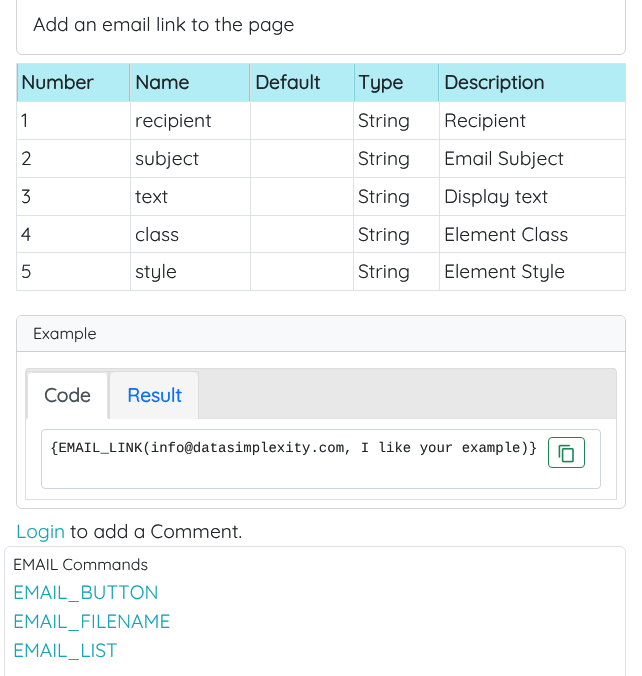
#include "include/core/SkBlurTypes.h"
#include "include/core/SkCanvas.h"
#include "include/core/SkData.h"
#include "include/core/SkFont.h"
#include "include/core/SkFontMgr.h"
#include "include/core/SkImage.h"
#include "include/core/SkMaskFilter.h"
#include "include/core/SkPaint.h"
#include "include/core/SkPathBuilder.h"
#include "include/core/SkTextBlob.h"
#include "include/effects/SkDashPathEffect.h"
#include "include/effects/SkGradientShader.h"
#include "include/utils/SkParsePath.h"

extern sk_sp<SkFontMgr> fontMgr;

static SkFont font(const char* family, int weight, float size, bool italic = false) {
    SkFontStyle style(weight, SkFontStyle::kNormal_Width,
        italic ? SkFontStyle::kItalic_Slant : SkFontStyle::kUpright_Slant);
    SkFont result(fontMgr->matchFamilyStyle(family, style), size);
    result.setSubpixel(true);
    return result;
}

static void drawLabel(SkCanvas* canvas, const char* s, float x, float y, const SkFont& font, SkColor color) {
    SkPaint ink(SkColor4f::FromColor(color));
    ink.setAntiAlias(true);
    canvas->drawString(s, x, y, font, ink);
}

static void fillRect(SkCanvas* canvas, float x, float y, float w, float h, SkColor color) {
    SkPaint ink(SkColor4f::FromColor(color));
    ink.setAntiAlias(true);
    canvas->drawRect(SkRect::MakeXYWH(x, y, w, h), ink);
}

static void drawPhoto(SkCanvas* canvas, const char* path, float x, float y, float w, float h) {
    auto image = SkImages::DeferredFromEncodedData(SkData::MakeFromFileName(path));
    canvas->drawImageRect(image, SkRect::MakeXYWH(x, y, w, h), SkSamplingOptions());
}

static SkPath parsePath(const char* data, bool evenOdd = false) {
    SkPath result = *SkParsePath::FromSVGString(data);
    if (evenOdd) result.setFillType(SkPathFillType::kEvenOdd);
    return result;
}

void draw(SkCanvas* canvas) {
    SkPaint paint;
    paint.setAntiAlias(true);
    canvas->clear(0xFFFFFFFF);
    paint.setStroke(true);
    paint.setStrokeWidth(1);
    paint.setColor(0xFFD2D2D2);
    canvas->drawRoundRect(SkRect::MakeXYWH(16.5f, -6.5f, 609, 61), 5.5f, 5.5f, paint);
    SkFont font1 = font("Quicksand", 300, 19.25f);
    drawLabel(canvas, "Add an email link to the page", 33, 31, font1, 0xFF212529);
    fillRect(canvas, 17, 64, 422, 37, 0xFF80D0D9);
    fillRect(canvas, 16, 63, 610, 1, 0xFFDEE2E6);
    fillRect(canvas, 18, 64, 111, 37, 0xFFB2ECF5);
    SkFont font2 = font("Quicksand", 700, 19.25f);
    drawLabel(canvas, "Number", 21, 89, font2, 0xFF212529);
    fillRect(canvas, 131, 64, 118, 37, 0xFFB2ECF5);
    drawLabel(canvas, "Name", 135, 89, font2, 0xFF212529);
    fillRect(canvas, 251, 64, 102, 37, 0xFFB2ECF5);
    drawLabel(canvas, "Default", 255, 89, font2, 0xFF212529);
    fillRect(canvas, 355, 64, 83, 37, 0xFFB2ECF5);
    drawLabel(canvas, "Type", 358, 89, font2, 0xFF212529);
    fillRect(canvas, 440, 64, 185, 37, 0xFFB2ECF5);
    drawLabel(canvas, "Description", 444, 89, font2, 0xFF212529);
    fillRect(canvas, 16, 101, 610, 1, 0xFFDEE2E6);
    drawLabel(canvas, "1", 21, 127, font1, 0xFF212529);
    drawLabel(canvas, "recipient", 135, 127, font1, 0xFF212529);
    drawLabel(canvas, "String", 358, 127, font1, 0xFF212529);
    drawLabel(canvas, "Recipient", 444, 127, font1, 0xFF212529);
    fillRect(canvas, 16, 139, 610, 1, 0xFFDEE2E6);
    drawLabel(canvas, "2", 21, 165, font1, 0xFF212529);
    drawLabel(canvas, "subject", 135, 165, font1, 0xFF212529);
    drawLabel(canvas, "String", 358, 165, font1, 0xFF212529);
    drawLabel(canvas, "Email Subject", 444, 165, font1, 0xFF212529);
    fillRect(canvas, 16, 177, 610, 1, 0xFFDEE2E6);
    drawLabel(canvas, "3", 21, 203, font1, 0xFF212529);
    drawLabel(canvas, "text", 135, 203, font1, 0xFF212529);
    drawLabel(canvas, "String", 358, 203, font1, 0xFF212529);
    drawLabel(canvas, "Display text", 444, 203, font1, 0xFF212529);
    fillRect(canvas, 16, 215, 610, 1, 0xFFDEE2E6);
    drawLabel(canvas, "4", 21, 241, font1, 0xFF212529);
    drawLabel(canvas, "class", 135, 241, font1, 0xFF212529);
    drawLabel(canvas, "String", 358, 241, font1, 0xFF212529);
    drawLabel(canvas, "Element Class", 444, 241, font1, 0xFF212529);
    fillRect(canvas, 16, 252, 610, 1, 0xFFDEE2E6);
    fillRect(canvas, 16, 290, 610, 1, 0xFFDEE2E6);
    fillRect(canvas, 16, 63, 1, 228, 0xFFDEE2E6);
    drawLabel(canvas, "5", 21, 278, font1, 0xFF212529);
    fillRect(canvas, 130, 63, 1, 228, 0xFFDEE2E6);
    drawLabel(canvas, "style", 135, 278, font1, 0xFF212529);
    fillRect(canvas, 250, 63, 1, 228, 0xFFDEE2E6);
    fillRect(canvas, 353, 63, 1, 228, 0xFFDEE2E6);
    drawLabel(canvas, "String", 358, 278, font1, 0xFF212529);
    fillRect(canvas, 625, 63, 1, 228, 0xFFDEE2E6);
    fillRect(canvas, 439, 63, 1, 228, 0xFFDEE2E6);
    drawLabel(canvas, "Element Style", 444, 278, font1, 0xFF212529);
    canvas->drawRoundRect(SkRect::MakeXYWH(16.5f, 315.5f, 609, 193), 5.5f, 5.5f, paint);
    paint.setStroke(false);
    paint.setColor(0xFFF8F9FA);
    canvas->drawPath(parsePath("M22 316H620C623 316 625 318 625 321V352H17V321C17 318 19 316 22 316Z"), paint);
    fillRect(canvas, 17, 351, 608, 1, 0xFFCCCDCE);
    SkFont font3 = font("Quicksand", 300, 16);
    drawLabel(canvas, "Example", 33, 339, font3, 0xFF212529);
    paint.setColor(0xFFE8E8E8);
    canvas->drawPath(parsePath("M30 368H612C615 368 617 370 617 373V419H25V373C25 370 27 368 30 368Z"), paint);
    paint.setColor(0xFFDDDDDD);
    canvas->drawPath(parsePath("M30 368C28 368 27 368 26 369L27 370L30 369H612L615 370L616 369C615 368 614 368 612 368Z"), paint);
    canvas->drawPath(parsePath("M617 419V373C617 372 616 370 616 369L615 370C616 371 616 372 616 373V418Z"), paint);
    paint.setColor(0xFFDEE2E6);
    canvas->drawPath(parsePath("M617 419L616 418H26L25 419Z"), paint);
    paint.setColor(0xFFDDDDDD);
    canvas->drawPath(parsePath("M25 419L26 418V373C26 372 26 371 27 370L26 369C26 370 25 372 25 373Z"), paint);
    fillRect(canvas, 26, 371, 173, 1, 0xFFDDDDDD);
    fillRect(canvas, 108, 371, 2, 47, 0xFFDDDDDD);
    fillRect(canvas, 26, 371, 1, 47, 0xFFDDDDDD);
    paint.setColor(0xFFFFFFFF);
    canvas->drawPath(parsePath("M33 372H102C105.5 372 108 374.5 108 378V419H27V378C27 374.5 29.5 372 33 372Z"), paint);
    paint.setColor(0xFFDEE2E6);
    canvas->drawPath(parsePath("M33 372C32 372 30 373 29 374L32 373H103L106 374C105 373 104 372 102 372Z"), paint);
    canvas->drawPath(parsePath("M108 419V378C108 376 107 375 106 374C106 375 107 376 107 378V418Z"), paint);
    paint.setColor(0xFFFFFFFF);
    canvas->drawPath(parsePath("M108 419L107 418H28L27 419Z"), paint);
    paint.setColor(0xFFDEE2E6);
    canvas->drawPath(parsePath("M27 419L28 418V378C28 376 28 375 29 374C28 375 27 376 27 378Z"), paint);
    drawLabel(canvas, "Code", 44, 402, font2, 0xFF495057);
    fillRect(canvas, 198, 371, 1, 47, 0xFFDDDDDD);
    paint.setColor(0xFFF5F5F5);
    canvas->drawPath(parsePath("M116 372H192C195.5 372 198 374.5 198 378V419H110V378C110 374.5 112.5 372 116 372Z"), paint);
    drawLabel(canvas, "Result", 127, 402, font2, 0xFF0D6EFD);
    fillRect(canvas, 616, 419, 1, 81, 0xFFDDDDDD);
    fillRect(canvas, 25, 499, 592, 1, 0xFFDDDDDD);
    fillRect(canvas, 25, 419, 1, 81, 0xFFDDDDDD);
    paint.setStroke(true);
    paint.setColor(0xFFCED4DA);
    canvas->drawRoundRect(SkRect::MakeXYWH(41.5f, 429.5f, 559, 59), 3.5f, 3.5f, paint);
    SkFont font4 = font("Liberation Mono", 400, 14);
    drawLabel(canvas, "{EMAIL_LINK(info@datasimplexity.com, I like your example)}", 50, 452, font4, 0xFF212529);
    paint.setColor(0xFF198754);
    canvas->drawRoundRect(SkRect::MakeXYWH(548.5f, 437.5f, 36, 30), 3.5f, 3.5f, paint);
    drawPhoto(canvas, "assets/img1.png", 558, 444, 16, 19);
    drawLabel(canvas, "Login", 16, 538, font1, 0xFF16A3B5);
    drawLabel(canvas, "to add a Comment.", 70, 538, font1, 0xFF212529);
    paint.setColor(0xFFDEE2E6);
    canvas->drawRoundRect(SkRect::MakeXYWH(4.5f, 546.5f, 621, 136), 5.5f, 5.5f, paint);
    drawLabel(canvas, "EMAIL Commands", 13, 570, font3, 0xFF212529);
    drawLabel(canvas, "EMAIL_BUTTON", 13, 599, font1, 0xFF16A3B5);
    drawLabel(canvas, "EMAIL_FILENAME", 13, 628, font1, 0xFF16A3B5);
    drawLabel(canvas, "EMAIL_LIST", 13, 657, font1, 0xFF16A3B5);
}
